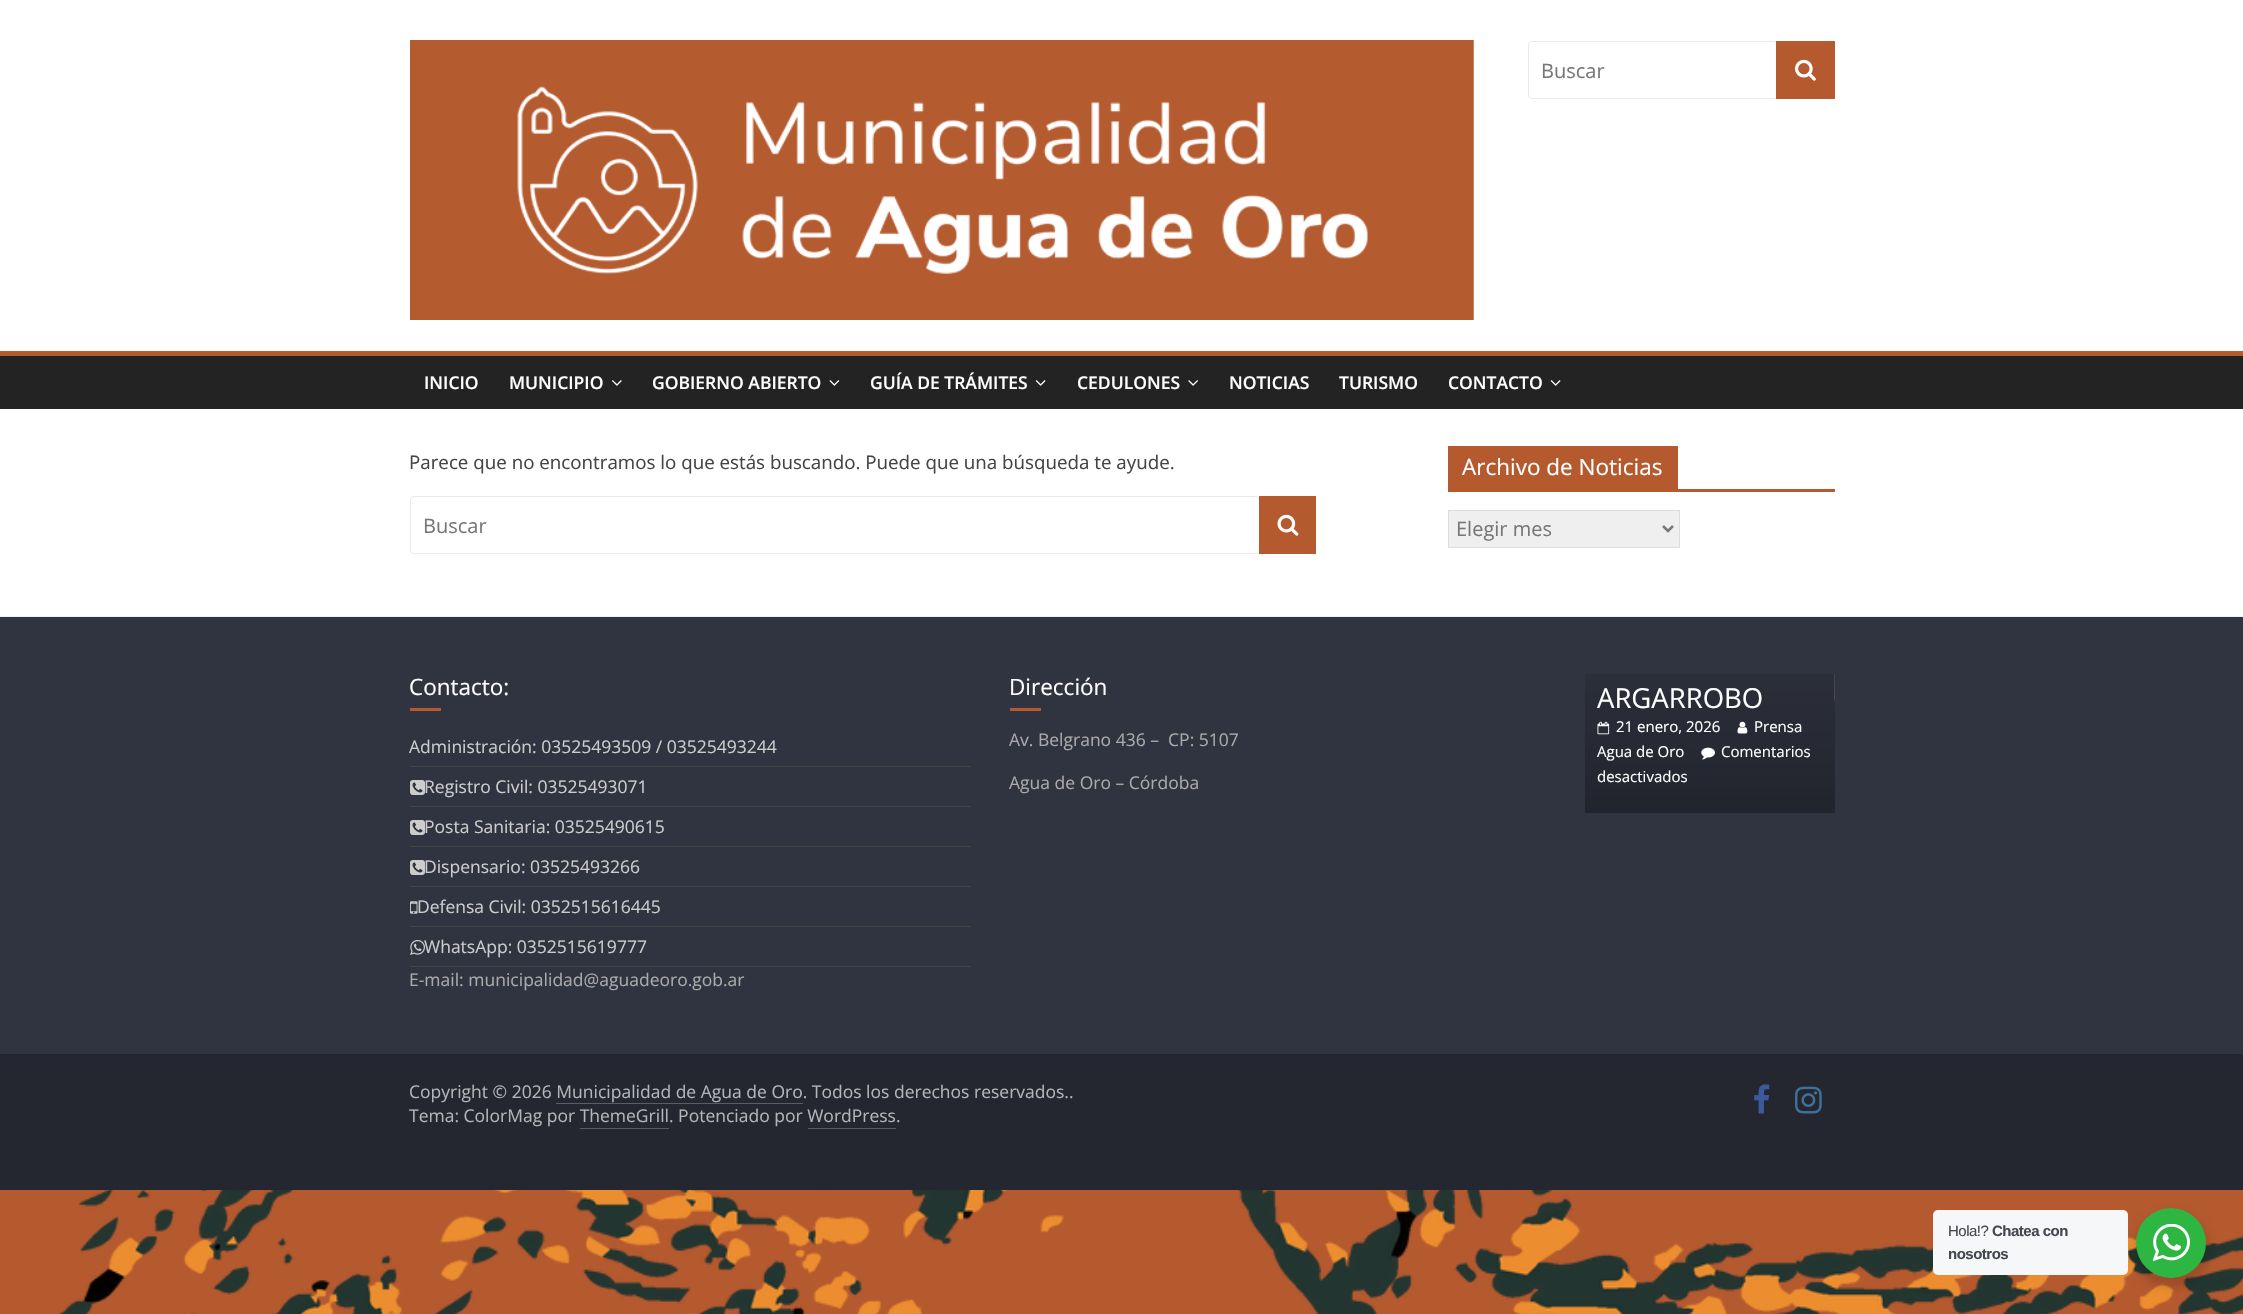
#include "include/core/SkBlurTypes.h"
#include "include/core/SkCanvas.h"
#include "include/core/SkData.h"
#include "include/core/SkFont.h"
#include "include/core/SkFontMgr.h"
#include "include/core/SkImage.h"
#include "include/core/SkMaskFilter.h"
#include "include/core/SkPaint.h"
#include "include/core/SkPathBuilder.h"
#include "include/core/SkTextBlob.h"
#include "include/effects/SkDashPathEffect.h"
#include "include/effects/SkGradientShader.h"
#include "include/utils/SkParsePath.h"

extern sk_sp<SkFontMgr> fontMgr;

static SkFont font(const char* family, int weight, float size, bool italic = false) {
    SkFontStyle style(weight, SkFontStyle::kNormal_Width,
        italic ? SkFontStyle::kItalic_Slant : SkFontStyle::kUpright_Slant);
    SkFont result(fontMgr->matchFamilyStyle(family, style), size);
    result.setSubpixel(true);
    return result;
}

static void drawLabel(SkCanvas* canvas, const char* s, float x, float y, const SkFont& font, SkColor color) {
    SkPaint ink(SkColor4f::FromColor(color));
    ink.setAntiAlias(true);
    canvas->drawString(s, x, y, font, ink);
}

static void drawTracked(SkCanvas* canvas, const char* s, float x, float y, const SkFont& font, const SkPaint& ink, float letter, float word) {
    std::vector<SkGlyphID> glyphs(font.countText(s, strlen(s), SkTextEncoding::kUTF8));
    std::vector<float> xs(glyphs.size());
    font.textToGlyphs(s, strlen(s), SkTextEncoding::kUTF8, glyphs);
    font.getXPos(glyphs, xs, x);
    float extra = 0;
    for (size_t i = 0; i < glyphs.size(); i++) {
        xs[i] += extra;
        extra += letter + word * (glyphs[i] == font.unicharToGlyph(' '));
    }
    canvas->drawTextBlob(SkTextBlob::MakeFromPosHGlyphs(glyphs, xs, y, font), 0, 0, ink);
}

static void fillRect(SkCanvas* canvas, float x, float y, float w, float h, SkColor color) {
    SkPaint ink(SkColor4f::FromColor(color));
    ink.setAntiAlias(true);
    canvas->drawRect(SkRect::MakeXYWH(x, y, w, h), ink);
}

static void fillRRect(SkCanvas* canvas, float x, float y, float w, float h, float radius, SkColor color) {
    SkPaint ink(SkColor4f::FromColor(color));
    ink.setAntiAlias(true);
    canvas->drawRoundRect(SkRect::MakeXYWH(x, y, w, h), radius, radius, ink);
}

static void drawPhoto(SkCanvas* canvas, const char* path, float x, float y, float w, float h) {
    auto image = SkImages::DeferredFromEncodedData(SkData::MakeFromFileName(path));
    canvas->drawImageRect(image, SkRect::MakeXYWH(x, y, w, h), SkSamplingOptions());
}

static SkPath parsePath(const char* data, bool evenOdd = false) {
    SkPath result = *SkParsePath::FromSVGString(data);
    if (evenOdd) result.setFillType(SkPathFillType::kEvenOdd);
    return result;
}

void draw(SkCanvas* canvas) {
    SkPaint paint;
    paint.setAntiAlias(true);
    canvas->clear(0xFFB5592F);
    drawPhoto(canvas, "assets/img1.png", 58, 1190, 2185, 124);
    fillRect(canvas, 0, 0, 2243, 351, 0xFFFFFFFF);
    drawPhoto(canvas, "assets/img2.png", 410, 40, 1064, 280);
    paint.setStroke(true);
    paint.setStrokeWidth(1);
    paint.setColor(0xFFEAEAEA);
    canvas->drawRoundRect(SkRect::MakeXYWH(1528.5f, 41.5f, 249, 57), 3.5f, 3.5f, paint);
    SkFont font1 = font("Open Sans", 400, 20);
    drawLabel(canvas, "Buscar", 1541, 78, font1, 0xFF777777);
    fillRect(canvas, 1776, 41, 59, 58, 0xFFB5592F);
    drawPhoto(canvas, "assets/img3.png", 1795, 59, 21, 22);
    fillRect(canvas, 0, 356, 2243, 53, 0xFF232323);
    SkFont font2 = font("Open Sans", 600, 17.5f);
    drawLabel(canvas, "INICIO", 424, 389, font2, 0xFFFFFFFF);
    drawLabel(canvas, "MUNICIPIO", 509, 389, font2, 0xFFFFFFFF);
    drawPhoto(canvas, "assets/img4.png", 612, 380, 10, 6);
    drawLabel(canvas, "GOBIERNO ABIERTO", 652, 389, font2, 0xFFFFFFFF);
    drawPhoto(canvas, "assets/img5.png", 829, 380, 11, 6);
    drawLabel(canvas, "GUÍA DE TRÁMITES", 870, 389, font2, 0xFFFFFFFF);
    drawPhoto(canvas, "assets/img6.png", 1035, 380, 11, 6);
    drawLabel(canvas, "CEDULONES", 1077, 389, font2, 0xFFFFFFFF);
    drawPhoto(canvas, "assets/img7.png", 1188, 380, 10, 6);
    drawLabel(canvas, "NOTICIAS", 1229, 389, font2, 0xFFFFFFFF);
    drawLabel(canvas, "TURISMO", 1339, 389, font2, 0xFFFFFFFF);
    drawLabel(canvas, "CONTACTO", 1448, 389, font2, 0xFFFFFFFF);
    drawPhoto(canvas, "assets/img6.png", 1550, 380, 11, 6);
    fillRect(canvas, 0, 409, 2243, 207, 0xFFFFFFFF);
    SkFont font3 = font("Open Sans", 400, 18.75f);
    drawLabel(canvas, "Parece que no encontramos lo que estás buscando. Puede que una búsqueda te ayude.", 409, 469, font3, 0xFF444444);
    canvas->drawRoundRect(SkRect::MakeXYWH(410.5f, 496.5f, 849, 57), 3.5f, 3.5f, paint);
    drawLabel(canvas, "Buscar", 423, 533, font1, 0xFF777777);
    fillRect(canvas, 1259, 496, 57, 58, 0xFFB5592F);
    drawPhoto(canvas, "assets/img8.png", 1277, 514, 22, 22);
    fillRect(canvas, 1448, 489, 387, 3, 0xFFB5592F);
    fillRect(canvas, 1448, 446, 230, 43, 0xFFB5592F);
    SkFont font4 = font("Open Sans", 400, 22.5f);
    drawLabel(canvas, "Archivo de Noticias", 1462, 475, font4, 0xFFFFFFFF);
    paint.setStroke(false);
    paint.setColor(0xFFEFEFEF);
    canvas->drawRect(SkRect::MakeXYWH(1448.5f, 510.5f, 231, 37), paint);
    paint.setStroke(true);
    paint.setColor(0xFFDDDDDD);
    canvas->drawRect(SkRect::MakeXYWH(1448.5f, 510.5f, 231, 37), paint);
    paint.setStrokeWidth(2.5f);
    paint.setColor(0xFF777777);
    canvas->drawPath(parsePath("M1663 526L1668 531L1673 526"), paint);
    drawLabel(canvas, "Elegir mes", 1456, 536, font1, 0xFF777777);
    fillRect(canvas, 0, 617, 2243, 437, 0xFF303440);
    fillRect(canvas, 0, 616, 2243, 1, 0xFFF2F2F2);
    drawLabel(canvas, "Contacto:", 409, 695, font4, 0xFFFFFFFF);
    fillRect(canvas, 410, 708, 31, 3, 0xFFB5592F);
    fillRect(canvas, 410, 766, 561, 1, 0xFF444444);
    SkFont font5 = font("Open Sans", 400, 17.5f);
    drawLabel(canvas, "Administración: 03525493509 / 03525493244", 409, 753, font5, 0xFFCCCCCC);
    fillRect(canvas, 410, 806, 561, 1, 0xFF444444);
    drawPhoto(canvas, "assets/img9.png", 410, 780, 15, 15);
    drawLabel(canvas, "Registro Civil: 03525493071", 424, 793, font5, 0xFFCCCCCC);
    fillRect(canvas, 410, 846, 561, 1, 0xFF444444);
    drawPhoto(canvas, "assets/img9.png", 410, 820, 15, 15);
    drawLabel(canvas, "Posta Sanitaria: 03525490615", 424, 833, font5, 0xFFCCCCCC);
    fillRect(canvas, 410, 886, 561, 1, 0xFF444444);
    drawPhoto(canvas, "assets/img9.png", 410, 860, 15, 15);
    drawLabel(canvas, "Dispensario: 03525493266", 424, 873, font5, 0xFFCCCCCC);
    fillRect(canvas, 410, 926, 561, 1, 0xFF444444);
    drawPhoto(canvas, "assets/img10.png", 410, 901, 8, 13);
    drawLabel(canvas, "Defensa Civil: 0352515616445", 417, 913, font5, 0xFFCCCCCC);
    fillRect(canvas, 410, 966, 561, 1, 0xFF444444);
    drawPhoto(canvas, "assets/img11.png", 410, 939, 15, 16);
    drawLabel(canvas, "WhatsApp: 0352515619777", 424, 953, font5, 0xFFCCCCCC);
    drawLabel(canvas, "E-mail: municipalidad@aguadeoro.gob.ar", 409, 986, font5, 0xFFAAAAAA);
    drawLabel(canvas, "Dirección", 1009, 695, font4, 0xFFFFFFFF);
    fillRect(canvas, 1010, 708, 31, 3, 0xFFB5592F);
    drawLabel(canvas, "Av. Belgrano 436 –  CP: 5107", 1009, 746, font5, 0xFFAAAAAA);
    drawLabel(canvas, "Agua de Oro – Córdoba", 1009, 789, font5, 0xFFAAAAAA);
    paint.setStroke(false);
    {
        const SkColor colors[] = {0xFF303440, 0xFF22242D};
        const float stops[] = {0, 1};
        const SkPoint ends[] = {{1710, 610}, {1710, 813}};
        paint.setShader(SkGradientShader::MakeLinear(ends, colors, stops, 2, SkTileMode::kClamp));
        paint.setAlpha(255);
    }
    canvas->drawRect(SkRect::MakeXYWH(1585, 674, 250, 139), paint);
    SkFont font6 = font("Open Sans", 400, 27.5f);
    drawLabel(canvas, "ARGARROBO", 1597, 708, font6, 0xFFFFFFFF);
    drawPhoto(canvas, "assets/img12.png", 1737, 721, 11, 13);
    SkFont font7 = font("Open Sans", 400, 15);
    drawLabel(canvas, "Prensa", 1754, 732, font7, 0xFFFFFFFF);
    drawLabel(canvas, "Agua de Oro", 1597, 757, font7, 0xFFFFFFFF);
    drawPhoto(canvas, "assets/img13.png", 1597, 721, 13, 14);
    drawLabel(canvas, "21 enero, 2026", 1616, 732, font7, 0xFFFFFFFF);
    drawPhoto(canvas, "assets/img14.png", 1701, 747, 14, 13);
    drawLabel(canvas, "Comentarios", 1721, 757, font7, 0xFFFFFFFF);
    drawLabel(canvas, "desactivados", 1597, 782, font7, 0xFFFFFFFF);
    drawPhoto(canvas, "assets/img15.png", 1834, 674, 1, 102);
    fillRect(canvas, 0, 1054, 2243, 136, 0xFF252730);
    drawLabel(canvas, "Copyright © 2026 Municipalidad de Agua de Oro. Todos los derechos reservados..", 409, 1098, font5, 0xFFB1B6B6);
    fillRect(canvas, 556, 1103, 247, 1, 0xFF5A5D62);
    drawLabel(canvas, "Tema: ColorMag por ThemeGrill. Potenciado por WordPress.", 409, 1122, font5, 0xFFB1B6B6);
    fillRect(canvas, 580, 1128, 89, 1, 0xFF5A5D62);
    fillRect(canvas, 808, 1128, 88, 1, 0xFF5A5D62);
    drawPhoto(canvas, "assets/img16.png", 1754, 1084, 16, 30);
    drawPhoto(canvas, "assets/img17.png", 1795, 1086, 27, 28);
    paint.setShader(nullptr);
    paint.setColor(0x24000000);
    paint.setMaskFilter(SkMaskFilter::MakeBlur(kNormal_SkBlurStyle, 5));
    canvas->drawRoundRect(SkRect::MakeXYWH(2134, 1213, 75, 75), 37.5f, 37.5f, paint);
    paint.setMaskFilter(nullptr);
    fillRRect(canvas, 1933, 1210, 195, 65, 5, 0xFFF5F7F9);
    SkFont font8 = font("Liberation Sans", 400, 15);
    paint.setColor(0xFF43474E);
    drawTracked(canvas, "Hola!?", 1948, 1236, font8, paint, -0.5f, 0);
    SkFont font9 = font("Liberation Sans", 700, 15);
    drawTracked(canvas, "Chatea con", 1992, 1236, font9, paint, -0.5f, 0);
    drawTracked(canvas, "nosotros", 1948, 1259, font9, paint, -0.5f, 0);
    paint.setColor(0xFF2DB742);
    canvas->drawCircle(2171, 1243, 35, paint);
    drawPhoto(canvas, "assets/img18.png", 2153, 1224, 37, 37);
}
